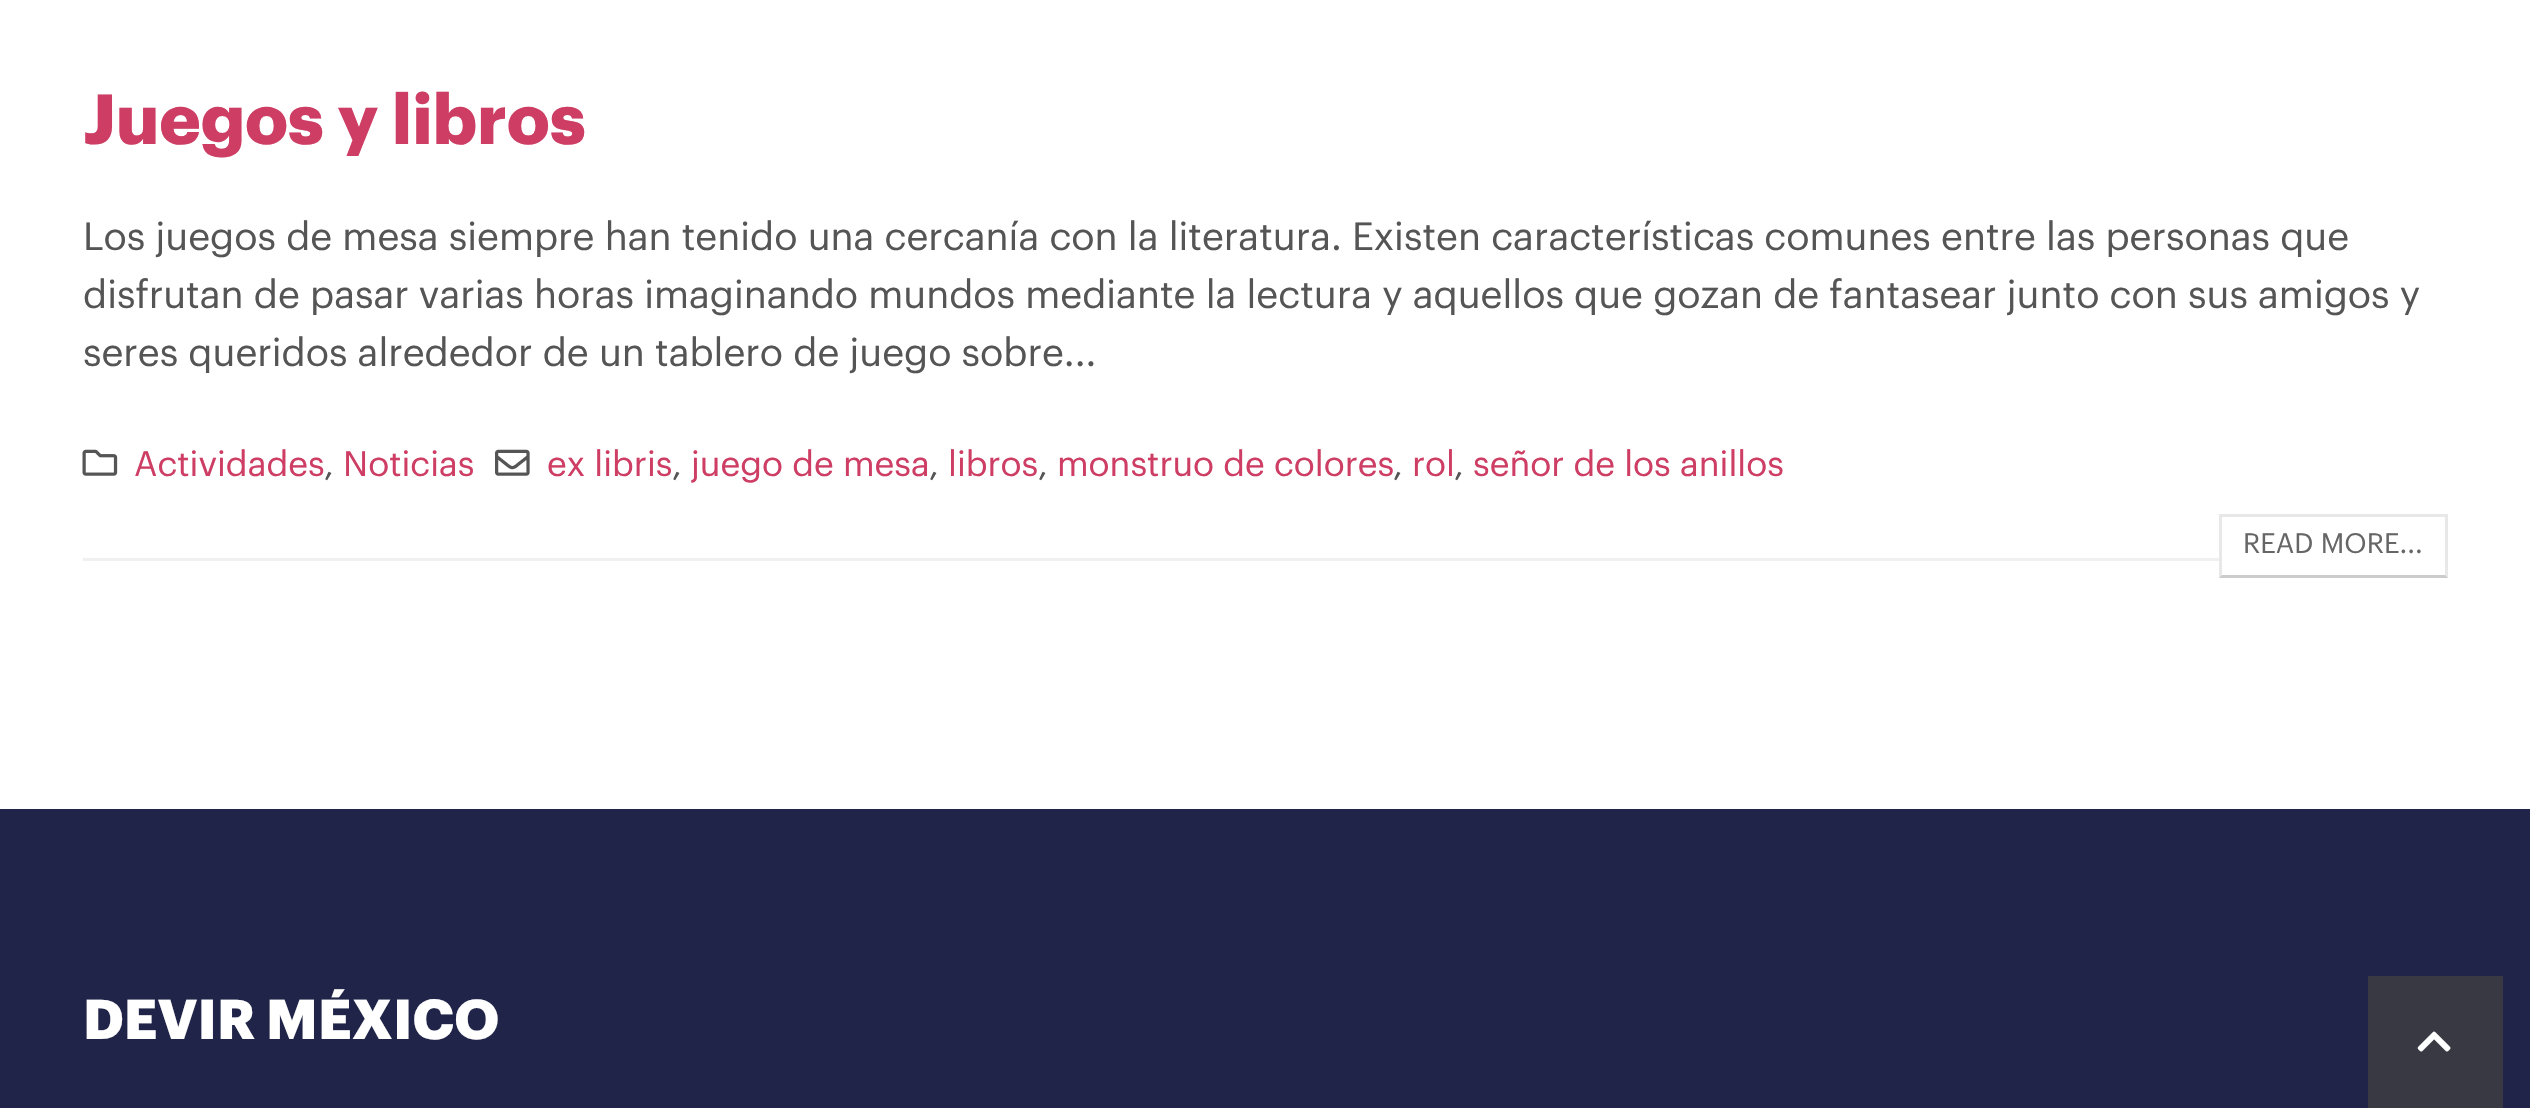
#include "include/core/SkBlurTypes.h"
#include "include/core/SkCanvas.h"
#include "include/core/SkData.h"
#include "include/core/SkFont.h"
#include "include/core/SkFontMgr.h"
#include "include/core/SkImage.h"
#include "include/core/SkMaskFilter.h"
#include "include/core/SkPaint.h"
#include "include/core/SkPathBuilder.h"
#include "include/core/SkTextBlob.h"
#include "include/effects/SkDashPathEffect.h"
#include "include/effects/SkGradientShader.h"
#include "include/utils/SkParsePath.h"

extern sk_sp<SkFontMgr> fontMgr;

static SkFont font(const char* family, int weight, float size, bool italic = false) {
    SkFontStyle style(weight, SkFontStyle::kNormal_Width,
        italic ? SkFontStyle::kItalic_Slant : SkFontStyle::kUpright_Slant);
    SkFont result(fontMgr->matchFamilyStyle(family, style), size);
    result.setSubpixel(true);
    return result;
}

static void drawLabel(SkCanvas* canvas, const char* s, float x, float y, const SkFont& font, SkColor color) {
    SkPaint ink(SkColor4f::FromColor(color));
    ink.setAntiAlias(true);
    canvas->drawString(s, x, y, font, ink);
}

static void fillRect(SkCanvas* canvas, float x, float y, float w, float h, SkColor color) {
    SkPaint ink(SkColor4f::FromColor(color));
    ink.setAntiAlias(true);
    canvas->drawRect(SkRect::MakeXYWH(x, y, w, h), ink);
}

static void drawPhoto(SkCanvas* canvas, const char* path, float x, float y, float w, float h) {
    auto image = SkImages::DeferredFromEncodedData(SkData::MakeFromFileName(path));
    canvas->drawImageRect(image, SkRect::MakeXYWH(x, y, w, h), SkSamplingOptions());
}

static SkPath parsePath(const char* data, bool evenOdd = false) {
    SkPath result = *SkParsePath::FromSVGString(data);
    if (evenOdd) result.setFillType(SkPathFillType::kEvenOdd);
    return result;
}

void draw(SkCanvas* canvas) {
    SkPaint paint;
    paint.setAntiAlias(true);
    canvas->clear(0xFFFFFFFF);
    fillRect(canvas, 83, 558, 2136, 3, 0xFFF0F0F0);
    SkFont font1 = font("Graphik", 700, 69.25f);
    drawLabel(canvas, "Juegos y libros", 83, 144, font1, 0xFFCE3E64);
    SkFont font2 = font("Graphik", 400, 38.5f);
    drawLabel(canvas, "Los juegos de mesa siempre han tenido una cercanía con la literatura. Existen características comunes entre las personas que", 83, 250, font2, 0xFF555555);
    drawLabel(canvas, "disfrutan de pasar varias horas imaginando mundos mediante la lectura y aquellos que gozan de fantasear junto con sus amigos y", 83, 308, font2, 0xFF555555);
    drawLabel(canvas, "seres queridos alrededor de un tablero de juego sobre...", 83, 366, font2, 0xFF555555);
    drawPhoto(canvas, "assets/img1.png", 82, 449, 36, 27);
    SkFont font3 = font("Graphik", 400, 34.75f);
    drawLabel(canvas, "Actividades", 134, 476, font3, 0xFFCE3E64);
    drawLabel(canvas, ",", 324, 476, font3, 0xFF555555);
    drawLabel(canvas, "Noticias", 343, 476, font3, 0xFFCE3E64);
    drawPhoto(canvas, "assets/img2.png", 495, 449, 35, 27);
    drawLabel(canvas, "ex libris", 547, 476, font3, 0xFFCE3E64);
    drawLabel(canvas, ",", 672, 476, font3, 0xFF555555);
    drawLabel(canvas, "juego de mesa", 691, 476, font3, 0xFFCE3E64);
    drawLabel(canvas, ",", 929, 476, font3, 0xFF555555);
    drawLabel(canvas, "libros", 948, 476, font3, 0xFFCE3E64);
    drawLabel(canvas, ",", 1038, 476, font3, 0xFF555555);
    drawLabel(canvas, "monstruo de colores", 1057, 476, font3, 0xFFCE3E64);
    drawLabel(canvas, ",", 1393, 476, font3, 0xFF555555);
    drawLabel(canvas, "rol", 1412, 476, font3, 0xFFCE3E64);
    drawLabel(canvas, ",", 1454, 476, font3, 0xFF555555);
    drawLabel(canvas, "señor de los anillos", 1473, 476, font3, 0xFFCE3E64);
    paint.setColor(0xFFE8E8E8);
    canvas->drawPath(parsePath("M2219 514H2448L2445 517H2222Z"), paint);
    paint.setColor(0x17000000);
    canvas->drawPath(parsePath("M2448 514V578L2445 575V517Z"), paint);
    paint.setColor(0x33000000);
    canvas->drawPath(parsePath("M2448 578H2219L2222 575H2445Z"), paint);
    paint.setColor(0x17000000);
    canvas->drawPath(parsePath("M2219 578V514L2222 517V575Z"), paint);
    SkFont font4 = font("Graphik", 400, 27.5f);
    drawLabel(canvas, "READ MORE...", 2243, 553, font4, 0xFF666666);
    fillRect(canvas, 0, 809, 2530, 299, 0xFF1F2448);
    SkFont font5 = font("Graphik", 700, 55);
    drawLabel(canvas, "DEVIR MÉXICO", 83, 1039, font5, 0xFFFFFFFF);
    fillRect(canvas, 2368, 976, 135, 132, 0xFF383942);
    drawPhoto(canvas, "assets/img3.png", 2417, 1031, 34, 21);
}
